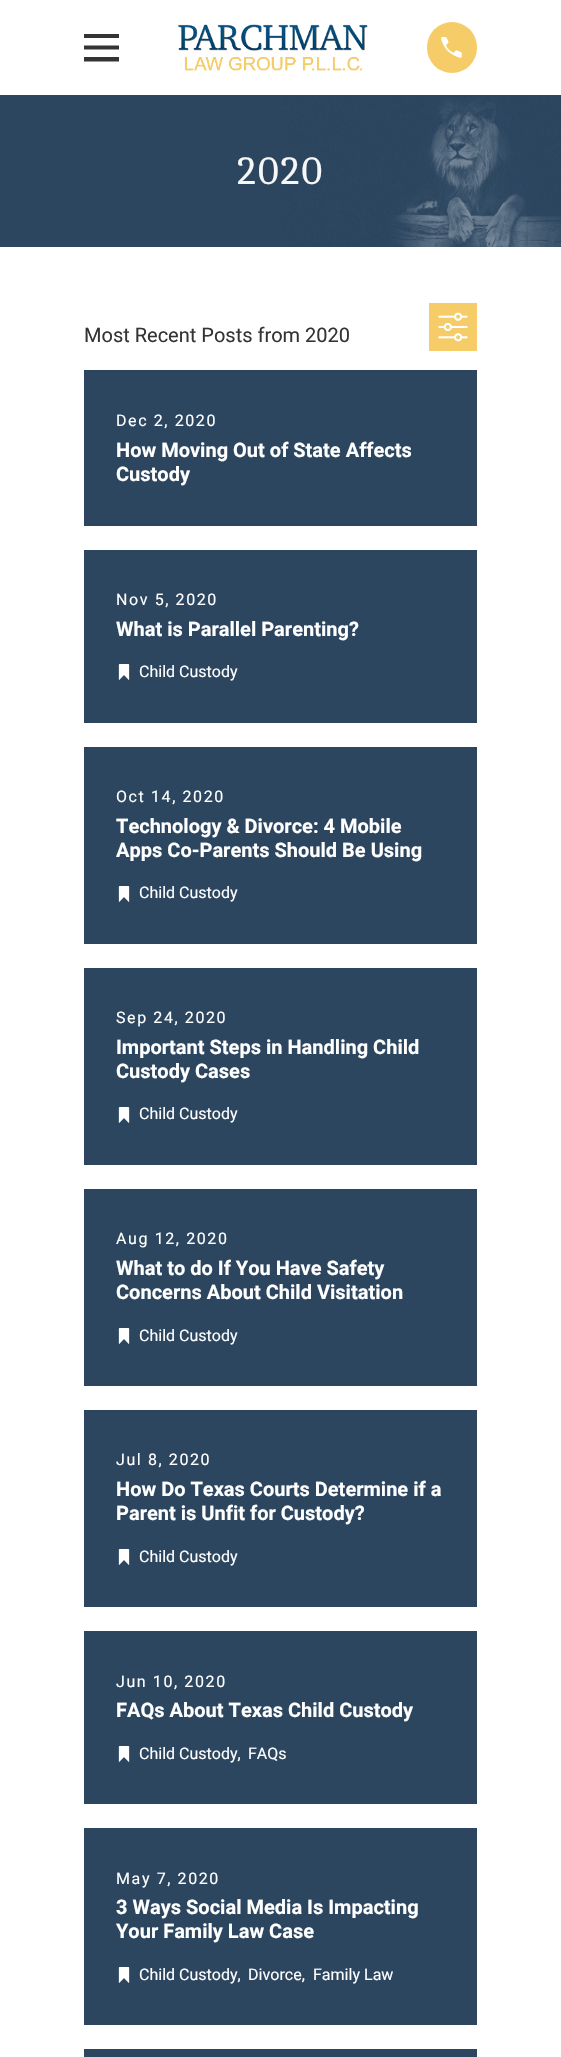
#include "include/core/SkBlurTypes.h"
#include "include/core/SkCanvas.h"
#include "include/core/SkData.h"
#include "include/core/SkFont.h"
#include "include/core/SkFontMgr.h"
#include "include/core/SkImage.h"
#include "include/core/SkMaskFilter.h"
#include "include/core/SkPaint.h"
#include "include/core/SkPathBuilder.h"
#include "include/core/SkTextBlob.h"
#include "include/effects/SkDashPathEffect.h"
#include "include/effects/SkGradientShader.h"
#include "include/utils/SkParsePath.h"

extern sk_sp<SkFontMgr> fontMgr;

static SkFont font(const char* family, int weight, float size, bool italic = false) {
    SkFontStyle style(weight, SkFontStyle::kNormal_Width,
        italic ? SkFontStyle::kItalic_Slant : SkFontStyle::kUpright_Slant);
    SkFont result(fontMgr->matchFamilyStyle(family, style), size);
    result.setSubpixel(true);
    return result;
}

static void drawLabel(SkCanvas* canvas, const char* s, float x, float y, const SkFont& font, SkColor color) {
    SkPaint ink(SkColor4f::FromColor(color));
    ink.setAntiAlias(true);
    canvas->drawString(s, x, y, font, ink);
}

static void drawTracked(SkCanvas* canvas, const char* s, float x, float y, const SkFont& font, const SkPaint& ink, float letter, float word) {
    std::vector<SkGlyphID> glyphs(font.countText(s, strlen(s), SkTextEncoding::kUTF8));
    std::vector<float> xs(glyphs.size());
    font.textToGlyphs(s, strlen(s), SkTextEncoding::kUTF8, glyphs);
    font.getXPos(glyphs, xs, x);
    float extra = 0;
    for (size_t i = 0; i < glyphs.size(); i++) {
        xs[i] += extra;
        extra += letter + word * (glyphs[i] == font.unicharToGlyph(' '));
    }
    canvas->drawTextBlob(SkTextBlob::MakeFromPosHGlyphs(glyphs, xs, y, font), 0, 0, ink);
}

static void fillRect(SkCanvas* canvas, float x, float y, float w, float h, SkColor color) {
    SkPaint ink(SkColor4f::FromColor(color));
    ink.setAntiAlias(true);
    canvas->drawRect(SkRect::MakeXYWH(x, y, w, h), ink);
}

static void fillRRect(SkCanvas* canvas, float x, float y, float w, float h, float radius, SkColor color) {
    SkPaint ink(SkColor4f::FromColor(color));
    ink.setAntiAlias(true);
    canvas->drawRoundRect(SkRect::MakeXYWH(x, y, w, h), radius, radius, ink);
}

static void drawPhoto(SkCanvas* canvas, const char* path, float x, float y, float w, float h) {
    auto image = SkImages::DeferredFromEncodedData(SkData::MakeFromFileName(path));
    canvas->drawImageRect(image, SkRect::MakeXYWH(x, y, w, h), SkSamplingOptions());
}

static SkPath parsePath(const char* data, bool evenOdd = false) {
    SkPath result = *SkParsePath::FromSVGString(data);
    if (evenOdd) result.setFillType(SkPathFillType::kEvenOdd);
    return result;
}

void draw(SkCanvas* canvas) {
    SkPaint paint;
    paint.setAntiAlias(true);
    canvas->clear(0xFFFFFFFF);
    paint.setColor(0xFF343434);
    canvas->drawPath(parsePath("M84 34V38H119V34ZM84 45.5V49.5H119V45.5ZM84 57V61.5H119V57Z"), paint);
    drawPhoto(canvas, "assets/img1.png", 178, 24, 190, 47);
    fillRRect(canvas, 427, 22, 50, 51, 25, 0xFFF6CC69);
    drawPhoto(canvas, "assets/img2.png", 441, 37, 21, 21);
    fillRect(canvas, 0, 95, 561, 152, 0xFF2C465F);
    drawPhoto(canvas, "assets/img3.png", 282, 97, 279, 150);
    SkFont font1 = font("Caladea", 400, 40);
    paint.setColor(0xFFF7F7F7);
    drawTracked(canvas, "2020", 237, 184, font1, paint, 2, 0);
    SkFont font2 = font("Heebo", 400, 20);
    drawLabel(canvas, "Most Recent Posts from 2020", 84, 342, font2, 0xFF343434);
    fillRect(canvas, 429, 303, 48, 48, 0xFFF6CC69);
    drawPhoto(canvas, "assets/img4.png", 438, 312, 30, 30);
    fillRect(canvas, 84, 370, 393, 156, 0xFF2C465F);
    SkFont font3 = font("Heebo", 400, 16);
    paint.setColor(0xFFFFFFFF);
    drawTracked(canvas, "Dec 2, 2020", 116, 426, font3, paint, 1.6f, 0);
    SkFont font4 = font("Heebo", 700, 20);
    drawLabel(canvas, "How Moving Out of State Affects", 116, 457, font4, 0xFFFFFFFF);
    drawLabel(canvas, "Custody", 116, 481, font4, 0xFFFFFFFF);
    fillRect(canvas, 84, 550, 393, 173, 0xFF2C465F);
    drawTracked(canvas, "Nov 5, 2020", 116, 605, font3, paint, 1.6f, 0);
    drawLabel(canvas, "What is Parallel Parenting?", 116, 636, font4, 0xFFFFFFFF);
    drawPhoto(canvas, "assets/img5.png", 118, 664, 12, 16);
    drawLabel(canvas, "Child Custody", 139, 677, font3, 0xFFFFFFFF);
    fillRect(canvas, 84, 747, 393, 197, 0xFF2C465F);
    drawTracked(canvas, "Oct 14, 2020", 116, 802, font3, paint, 1.6f, 0);
    drawLabel(canvas, "Technology & Divorce: 4 Mobile", 116, 833, font4, 0xFFFFFFFF);
    drawLabel(canvas, "Apps Co-Parents Should Be Using", 116, 857, font4, 0xFFFFFFFF);
    drawPhoto(canvas, "assets/img5.png", 118, 886, 12, 16);
    drawLabel(canvas, "Child Custody", 139, 898, font3, 0xFFFFFFFF);
    fillRect(canvas, 84, 968, 393, 197, 0xFF2C465F);
    drawTracked(canvas, "Sep 24, 2020", 116, 1023, font3, paint, 1.6f, 0);
    drawLabel(canvas, "Important Steps in Handling Child", 116, 1054, font4, 0xFFFFFFFF);
    drawLabel(canvas, "Custody Cases", 116, 1078, font4, 0xFFFFFFFF);
    drawPhoto(canvas, "assets/img5.png", 118, 1107, 12, 16);
    drawLabel(canvas, "Child Custody", 139, 1119, font3, 0xFFFFFFFF);
    fillRect(canvas, 84, 1189, 393, 197, 0xFF2C465F);
    drawTracked(canvas, "Aug 12, 2020", 116, 1244, font3, paint, 1.6f, 0);
    drawLabel(canvas, "What to do If You Have Safety", 116, 1275, font4, 0xFFFFFFFF);
    drawLabel(canvas, "Concerns About Child Visitation", 116, 1299, font4, 0xFFFFFFFF);
    drawPhoto(canvas, "assets/img5.png", 118, 1328, 12, 16);
    drawLabel(canvas, "Child Custody", 139, 1341, font3, 0xFFFFFFFF);
    fillRect(canvas, 84, 1410, 393, 197, 0xFF2C465F);
    drawTracked(canvas, "Jul 8, 2020", 116, 1465, font3, paint, 1.6f, 0);
    drawLabel(canvas, "How Do Texas Courts Determine if a", 116, 1496, font4, 0xFFFFFFFF);
    drawLabel(canvas, "Parent is Unfit for Custody?", 116, 1520, font4, 0xFFFFFFFF);
    drawPhoto(canvas, "assets/img5.png", 118, 1549, 12, 16);
    drawLabel(canvas, "Child Custody", 139, 1562, font3, 0xFFFFFFFF);
    fillRect(canvas, 84, 1631, 393, 173, 0xFF2C465F);
    drawTracked(canvas, "Jun 10, 2020", 116, 1687, font3, paint, 1.6f, 0);
    drawLabel(canvas, "FAQs About Texas Child Custody", 116, 1717, font4, 0xFFFFFFFF);
    drawPhoto(canvas, "assets/img5.png", 118, 1746, 12, 16);
    drawLabel(canvas, "Child Custody,", 139, 1759, font3, 0xFFFFFFFF);
    drawLabel(canvas, "FAQs", 248, 1759, font3, 0xFFFFFFFF);
    fillRect(canvas, 84, 1828, 393, 197, 0xFF2C465F);
    drawTracked(canvas, "May 7, 2020", 116, 1884, font3, paint, 1.6f, 0);
    drawLabel(canvas, "3 Ways Social Media Is Impacting", 116, 1914, font4, 0xFFFFFFFF);
    drawLabel(canvas, "Your Family Law Case", 116, 1938, font4, 0xFFFFFFFF);
    drawPhoto(canvas, "assets/img5.png", 118, 1967, 12, 16);
    drawLabel(canvas, "Child Custody,", 139, 1980, font3, 0xFFFFFFFF);
    drawLabel(canvas, "Divorce,", 248, 1980, font3, 0xFFFFFFFF);
    drawLabel(canvas, "Family Law", 313, 1980, font3, 0xFFFFFFFF);
    fillRect(canvas, 84, 2049, 393, 8, 0xFF2C465F);
}
